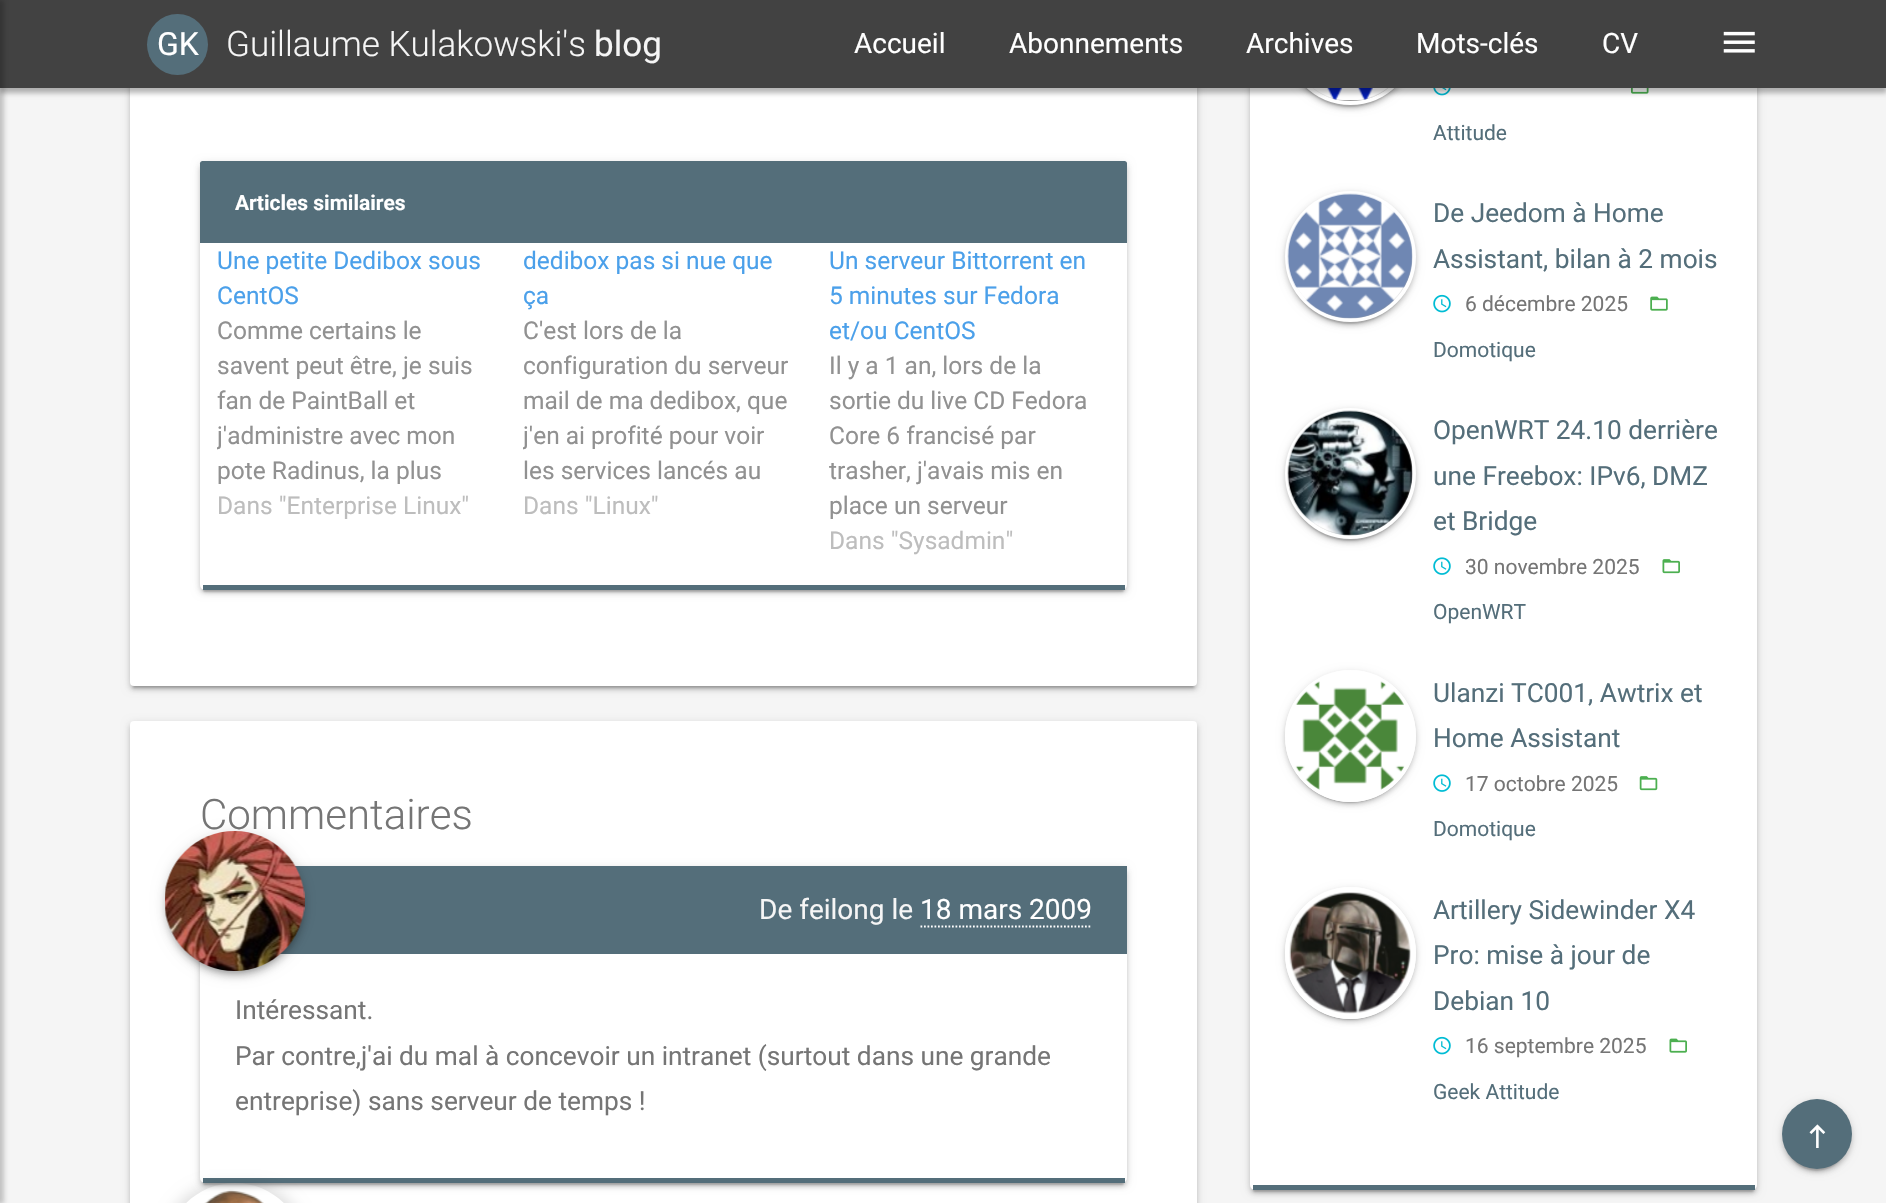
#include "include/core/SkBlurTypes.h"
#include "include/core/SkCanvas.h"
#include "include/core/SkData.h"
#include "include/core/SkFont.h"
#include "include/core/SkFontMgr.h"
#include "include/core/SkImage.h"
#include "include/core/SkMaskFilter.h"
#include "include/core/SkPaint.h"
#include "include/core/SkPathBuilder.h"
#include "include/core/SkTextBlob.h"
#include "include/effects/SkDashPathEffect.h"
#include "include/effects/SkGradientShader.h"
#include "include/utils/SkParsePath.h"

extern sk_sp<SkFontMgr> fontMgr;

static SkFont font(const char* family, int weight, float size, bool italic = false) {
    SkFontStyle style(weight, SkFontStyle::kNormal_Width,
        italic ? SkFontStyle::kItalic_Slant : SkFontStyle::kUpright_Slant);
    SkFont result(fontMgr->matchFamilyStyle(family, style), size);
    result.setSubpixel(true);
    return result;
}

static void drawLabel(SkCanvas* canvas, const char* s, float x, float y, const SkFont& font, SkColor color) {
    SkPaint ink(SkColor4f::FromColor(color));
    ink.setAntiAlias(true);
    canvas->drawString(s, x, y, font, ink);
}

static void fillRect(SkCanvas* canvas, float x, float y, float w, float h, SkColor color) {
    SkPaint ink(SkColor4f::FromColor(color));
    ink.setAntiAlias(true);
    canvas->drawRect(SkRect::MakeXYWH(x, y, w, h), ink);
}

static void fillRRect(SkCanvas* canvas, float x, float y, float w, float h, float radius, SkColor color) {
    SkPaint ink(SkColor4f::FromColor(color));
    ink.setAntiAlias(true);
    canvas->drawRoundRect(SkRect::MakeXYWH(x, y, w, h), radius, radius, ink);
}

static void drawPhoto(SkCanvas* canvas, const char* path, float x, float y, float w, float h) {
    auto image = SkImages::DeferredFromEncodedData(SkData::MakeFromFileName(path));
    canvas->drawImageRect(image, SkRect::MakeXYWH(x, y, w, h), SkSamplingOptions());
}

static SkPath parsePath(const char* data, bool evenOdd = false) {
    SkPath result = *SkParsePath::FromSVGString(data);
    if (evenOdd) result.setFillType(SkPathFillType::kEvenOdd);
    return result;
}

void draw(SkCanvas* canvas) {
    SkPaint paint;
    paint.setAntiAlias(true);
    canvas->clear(0xFFF5F5F5);
    paint.setColor(0x1F000000);
    paint.setMaskFilter(SkMaskFilter::MakeBlur(kNormal_SkBlurStyle, 4.5f));
    canvas->drawRoundRect(SkRect::MakeXYWH(130, -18, 1067, 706), 4, 4, paint);
    paint.setMaskFilter(nullptr);
    paint.setColor(0x33000000);
    paint.setMaskFilter(SkMaskFilter::MakeBlur(kNormal_SkBlurStyle, 1));
    canvas->drawRect(SkRect::MakeXYWH(133, -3, 1061, 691), paint);
    paint.setMaskFilter(nullptr);
    paint.setColor(0x24000000);
    paint.setMaskFilter(SkMaskFilter::MakeBlur(kNormal_SkBlurStyle, 2));
    canvas->drawRoundRect(SkRect::MakeXYWH(130, -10, 1067, 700), 4, 4, paint);
    paint.setMaskFilter(nullptr);
    fillRRect(canvas, 130, -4, 1067, 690, 4, 0xFFFFFFFF);
    paint.setColor(0x1F000000);
    paint.setMaskFilter(SkMaskFilter::MakeBlur(kNormal_SkBlurStyle, 4.5f));
    canvas->drawRoundRect(SkRect::MakeXYWH(1250, -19, 507, 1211), 5, 5, paint);
    paint.setMaskFilter(nullptr);
    paint.setColor(0x33000000);
    paint.setMaskFilter(SkMaskFilter::MakeBlur(kNormal_SkBlurStyle, 1));
    canvas->drawRoundRect(SkRect::MakeXYWH(1253, -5, 501, 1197), 2, 2, paint);
    paint.setMaskFilter(nullptr);
    paint.setColor(0x24000000);
    paint.setMaskFilter(SkMaskFilter::MakeBlur(kNormal_SkBlurStyle, 2));
    canvas->drawRoundRect(SkRect::MakeXYWH(1250, -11, 507, 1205), 5, 5, paint);
    paint.setMaskFilter(nullptr);
    fillRRect(canvas, 1250, -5, 507, 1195, 5, 0xFFFFFFFF);
    paint.setColor(0x1F000000);
    paint.setMaskFilter(SkMaskFilter::MakeBlur(kNormal_SkBlurStyle, 4.5f));
    canvas->drawRoundRect(SkRect::MakeXYWH(1285, -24, 131, 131), 65.5f, 65.5f, paint);
    paint.setMaskFilter(nullptr);
    paint.setColor(0x33000000);
    paint.setMaskFilter(SkMaskFilter::MakeBlur(kNormal_SkBlurStyle, 1));
    canvas->drawRoundRect(SkRect::MakeXYWH(1288, -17, 124, 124), 62, 62, paint);
    paint.setMaskFilter(nullptr);
    paint.setColor(0x24000000);
    paint.setMaskFilter(SkMaskFilter::MakeBlur(kNormal_SkBlurStyle, 2));
    canvas->drawRoundRect(SkRect::MakeXYWH(1285, -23, 131, 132), 65.5f, 65.5f, paint);
    paint.setMaskFilter(nullptr);
    paint.setStroke(true);
    paint.setStrokeWidth(4);
    paint.setColor(0xFFFFFFFF);
    canvas->drawCircle(1350.5f, 39.5f, 63.5f, paint);
    drawPhoto(canvas, "assets/img4.png", 1311, 88, 78, 12);
    drawPhoto(canvas, "assets/img5.png", 1433, 88, 18, 8);
    drawPhoto(canvas, "assets/img6.png", 1631, 88, 18, 6);
    paint.setStroke(false);
    paint.setColor(0x4A000000);
    paint.setMaskFilter(SkMaskFilter::MakeBlur(kNormal_SkBlurStyle, 2.5f));
    canvas->drawRect(SkRect::MakeXYWH(0, 5, 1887, 88), paint);
    paint.setMaskFilter(nullptr);
    fillRect(canvas, 0, 0, 1886, 88, 0xFF424242);
    paint.setColor(0x36000000);
    paint.setMaskFilter(SkMaskFilter::MakeBlur(kNormal_SkBlurStyle, 2.5f));
    canvas->drawRect(SkRect::MakeXYWH(-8, 0, 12, 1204), paint);
    paint.setMaskFilter(nullptr);
    paint.setColor(0xFF546E7A);
    canvas->drawCircle(177.5f, 44.5f, 30.5f, paint);
    SkFont font1 = font("Roboto", 400, 32);
    drawLabel(canvas, "GK", 157, 55, font1, 0xFFFFFFFF);
    SkFont font2 = font("Roboto", 300, 35);
    drawLabel(canvas, "Guillaume Kulakowski's", 226, 56, font2, 0xFFF5F5F5);
    SkFont font3 = font("Roboto", 400, 35);
    drawLabel(canvas, "blog", 594, 56, font3, 0xFFF5F5F5);
    SkFont font4 = font("Roboto", 400, 28);
    drawLabel(canvas, "Accueil", 854, 53, font4, 0xFFFFFFFF);
    drawLabel(canvas, "Abonnements", 1009, 53, font4, 0xFFFFFFFF);
    drawLabel(canvas, "Archives", 1246, 53, font4, 0xFFFFFFFF);
    drawLabel(canvas, "Mots-clés", 1416, 53, font4, 0xFFFFFFFF);
    drawLabel(canvas, "CV", 1602, 53, font4, 0xFFFFFFFF);
    drawPhoto(canvas, "assets/img1.png", 1723, 31, 32, 22);
    paint.setColor(0x1F000000);
    paint.setMaskFilter(SkMaskFilter::MakeBlur(kNormal_SkBlurStyle, 4.5f));
    canvas->drawRoundRect(SkRect::MakeXYWH(200, 163, 927, 429), 5, 5, paint);
    paint.setMaskFilter(nullptr);
    paint.setColor(0x33000000);
    paint.setMaskFilter(SkMaskFilter::MakeBlur(kNormal_SkBlurStyle, 1));
    canvas->drawRoundRect(SkRect::MakeXYWH(203, 170, 921, 422), 2, 2, paint);
    paint.setMaskFilter(nullptr);
    paint.setColor(0x24000000);
    paint.setMaskFilter(SkMaskFilter::MakeBlur(kNormal_SkBlurStyle, 2));
    canvas->drawRoundRect(SkRect::MakeXYWH(200, 165, 927, 428), 5, 5, paint);
    paint.setMaskFilter(nullptr);
    fillRRect(canvas, 200, 161, 927, 429, 5, 0xFFFFFFFF);
    fillRect(canvas, 203, 585, 922, 5, 0xFF546E7A);
    paint.setColor(0xFF546E7A);
    canvas->drawPath(parsePath("M202.5 161H1124.5C1126 161 1127 162 1127 163.5V243H200V163.5C200 162 201 161 202.5 161Z"), paint);
    SkFont font5 = font("Roboto", 700, 21);
    drawLabel(canvas, "Articles similaires", 235, 210, font5, 0xFFFFFFFF);
    SkFont font6 = font("Roboto", 400, 24.5f);
    drawLabel(canvas, "Une petite Dedibox sous", 217, 269, font6, 0xFF4BA0EA);
    drawLabel(canvas, "CentOS", 217, 304, font6, 0xFF4BA0EA);
    drawLabel(canvas, "Comme certains le", 217, 339, font6, 0xFF919191);
    drawLabel(canvas, "savent peut être, je suis", 217, 374, font6, 0xFF919191);
    drawLabel(canvas, "fan de PaintBall et", 217, 409, font6, 0xFF919191);
    canvas->save();
    canvas->clipRect(SkRect::MakeXYWH(217, 313, 271, 175));
    drawLabel(canvas, "j'administre avec mon", 217, 444, font6, 0xFF919191);
    canvas->restore();
    drawLabel(canvas, "pote Radinus, la plus", 217, 479, font6, 0xFF919191);
    drawLabel(canvas, "Dans \"Enterprise Linux\"", 217, 514, font6, 0xFFBDBDBD);
    drawLabel(canvas, "dedibox pas si nue que", 523, 269, font6, 0xFF4BA0EA);
    drawLabel(canvas, "ça", 523, 304, font6, 0xFF4BA0EA);
    drawLabel(canvas, "C'est lors de la", 523, 339, font6, 0xFF919191);
    drawLabel(canvas, "configuration du serveur", 523, 374, font6, 0xFF919191);
    drawLabel(canvas, "mail de ma dedibox, que", 523, 409, font6, 0xFF919191);
    canvas->save();
    canvas->clipRect(SkRect::MakeXYWH(523, 313, 272, 175));
    drawLabel(canvas, "j'en ai profité pour voir", 523, 444, font6, 0xFF919191);
    canvas->restore();
    drawLabel(canvas, "les services lancés au", 523, 479, font6, 0xFF919191);
    drawLabel(canvas, "Dans \"Linux\"", 523, 514, font6, 0xFFBDBDBD);
    drawLabel(canvas, "Un serveur Bittorrent en", 829, 269, font6, 0xFF4BA0EA);
    drawLabel(canvas, "5 minutes sur Fedora", 829, 304, font6, 0xFF4BA0EA);
    drawLabel(canvas, "et/ou CentOS", 829, 339, font6, 0xFF4BA0EA);
    drawLabel(canvas, "Il y a 1 an, lors de la", 829, 374, font6, 0xFF919191);
    drawLabel(canvas, "sortie du live CD Fedora", 829, 409, font6, 0xFF919191);
    drawLabel(canvas, "Core 6 francisé par", 829, 444, font6, 0xFF919191);
    drawLabel(canvas, "trasher, j'avais mis en", 829, 479, font6, 0xFF919191);
    drawLabel(canvas, "place un serveur", 829, 514, font6, 0xFF919191);
    drawLabel(canvas, "Dans \"Sysadmin\"", 829, 549, font6, 0xFFBDBDBD);
    paint.setColor(0x1F000000);
    paint.setMaskFilter(SkMaskFilter::MakeBlur(kNormal_SkBlurStyle, 4.5f));
    canvas->drawRoundRect(SkRect::MakeXYWH(130, 723, 1067, 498), 4, 4, paint);
    paint.setMaskFilter(nullptr);
    paint.setColor(0x24000000);
    paint.setMaskFilter(SkMaskFilter::MakeBlur(kNormal_SkBlurStyle, 2));
    canvas->drawRoundRect(SkRect::MakeXYWH(130, 725, 1067, 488), 4, 4, paint);
    paint.setMaskFilter(nullptr);
    fillRRect(canvas, 130, 721, 1067, 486, 4, 0xFFFFFFFF);
    SkFont font7 = font("Roboto", 300, 42);
    drawLabel(canvas, "Commentaires", 200, 829, font7, 0xFF757575);
    paint.setColor(0x1F000000);
    paint.setMaskFilter(SkMaskFilter::MakeBlur(kNormal_SkBlurStyle, 4.5f));
    canvas->drawRoundRect(SkRect::MakeXYWH(200, 868, 927, 317), 5, 5, paint);
    paint.setMaskFilter(nullptr);
    paint.setColor(0x33000000);
    paint.setMaskFilter(SkMaskFilter::MakeBlur(kNormal_SkBlurStyle, 1));
    canvas->drawRoundRect(SkRect::MakeXYWH(203, 875, 921, 310), 2, 2, paint);
    paint.setMaskFilter(nullptr);
    paint.setColor(0x24000000);
    paint.setMaskFilter(SkMaskFilter::MakeBlur(kNormal_SkBlurStyle, 2));
    canvas->drawRoundRect(SkRect::MakeXYWH(200, 870, 927, 317), 5, 5, paint);
    paint.setMaskFilter(nullptr);
    fillRRect(canvas, 200, 866, 927, 317, 5, 0xFFFFFFFF);
    fillRect(canvas, 203, 1178, 922, 5, 0xFF546E7A);
    fillRect(canvas, 279, 866, 848, 88, 0xFF546E7A);
    paint.setColor(0x1F000000);
    paint.setMaskFilter(SkMaskFilter::MakeBlur(kNormal_SkBlurStyle, 7));
    canvas->drawRoundRect(SkRect::MakeXYWH(165, 833, 140, 140), 70, 70, paint);
    paint.setMaskFilter(nullptr);
    paint.setColor(0x33000000);
    paint.setMaskFilter(SkMaskFilter::MakeBlur(kNormal_SkBlurStyle, 2.5f));
    canvas->drawRoundRect(SkRect::MakeXYWH(168, 840, 133, 133), 66.5f, 66.5f, paint);
    paint.setMaskFilter(nullptr);
    paint.setColor(0x24000000);
    paint.setMaskFilter(SkMaskFilter::MakeBlur(kNormal_SkBlurStyle, 3.5f));
    canvas->drawRoundRect(SkRect::MakeXYWH(165, 837, 140, 140), 70, 70, paint);
    paint.setMaskFilter(nullptr);
    drawPhoto(canvas, "assets/img2.png", 165, 831, 140, 140);
    drawLabel(canvas, "De feilong le", 759, 919, font4, 0xFFF5F5F5);
    drawLabel(canvas, "18 mars 2009", 920, 919, font4, 0xFFFFFFFF);
    paint.setStroke(true);
    paint.setStrokeWidth(1.8f);
    paint.setColor(0xFFFFFFFF);
    paint.setPathEffect(SkDashPathEffect::Make({{1.75f, 1.75f}}, 0));
    canvas->drawPath(parsePath("M920.5 926.5H1092"), paint);
    paint.setPathEffect(nullptr);
    SkFont font8 = font("Roboto", 400, 26.25f);
    drawLabel(canvas, "Intéressant.", 235, 1019, font8, 0xFF757575);
    drawLabel(canvas, "Par contre,j'ai du mal à concevoir un intranet (surtout dans une grande", 235, 1065, font8, 0xFF757575);
    drawLabel(canvas, "entreprise) sans serveur de temps !", 235, 1110, font8, 0xFF757575);
    canvas->save();
    canvas->clipPath(parsePath("M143 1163H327V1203H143ZM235 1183C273.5 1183 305 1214.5 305 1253C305 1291.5 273.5 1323 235 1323C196.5 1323 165 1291.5 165 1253C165 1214.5 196.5 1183 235 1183Z", true), true);
    paint.setStroke(false);
    paint.setColor(0x1F000000);
    paint.setMaskFilter(SkMaskFilter::MakeBlur(kNormal_SkBlurStyle, 7));
    canvas->drawRoundRect(SkRect::MakeXYWH(165, 1185, 140, 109), 70, 70, paint);
    paint.setMaskFilter(nullptr);
    canvas->restore();
    drawPhoto(canvas, "assets/img3.png", 204, 1189, 60, 14);
    fillRect(canvas, 1253, 1185, 502, 5, 0xFF546E7A);
    SkFont font9 = font("Roboto", 400, 21);
    drawLabel(canvas, "Attitude", 1433, 140, font9, 0xFF546E7A);
    paint.setMaskFilter(SkMaskFilter::MakeBlur(kNormal_SkBlurStyle, 4.5f));
    canvas->drawRoundRect(SkRect::MakeXYWH(1285, 193, 131, 131), 65.5f, 65.5f, paint);
    paint.setMaskFilter(nullptr);
    paint.setColor(0x33000000);
    paint.setMaskFilter(SkMaskFilter::MakeBlur(kNormal_SkBlurStyle, 1));
    canvas->drawRoundRect(SkRect::MakeXYWH(1288, 200, 124, 124), 62, 62, paint);
    paint.setMaskFilter(nullptr);
    paint.setColor(0x24000000);
    paint.setMaskFilter(SkMaskFilter::MakeBlur(kNormal_SkBlurStyle, 2));
    canvas->drawRoundRect(SkRect::MakeXYWH(1285, 194, 131, 132), 65.5f, 65.5f, paint);
    paint.setMaskFilter(nullptr);
    paint.setStroke(true);
    paint.setStrokeWidth(4);
    paint.setColor(0xFFFFFFFF);
    canvas->drawCircle(1350.5f, 256.5f, 63.5f, paint);
    drawPhoto(canvas, "assets/img7.png", 1287, 193, 126, 126);
    drawLabel(canvas, "De Jeedom à Home", 1433, 222, font8, 0xFF546E7A);
    drawLabel(canvas, "Assistant, bilan à 2 mois", 1433, 268, font8, 0xFF546E7A);
    drawPhoto(canvas, "assets/img8.png", 1433, 294, 18, 19);
    drawLabel(canvas, "6 décembre 2025", 1465, 311, font9, 0xFF757575);
    drawPhoto(canvas, "assets/img9.png", 1650, 296, 18, 15);
    drawLabel(canvas, "Domotique", 1433, 357, font9, 0xFF546E7A);
    paint.setStroke(false);
    paint.setColor(0x1F000000);
    paint.setMaskFilter(SkMaskFilter::MakeBlur(kNormal_SkBlurStyle, 4.5f));
    canvas->drawRoundRect(SkRect::MakeXYWH(1285, 410, 131, 131), 65.5f, 65.5f, paint);
    paint.setMaskFilter(nullptr);
    paint.setColor(0x33000000);
    paint.setMaskFilter(SkMaskFilter::MakeBlur(kNormal_SkBlurStyle, 1));
    canvas->drawRoundRect(SkRect::MakeXYWH(1288, 417, 124, 124), 62, 62, paint);
    paint.setMaskFilter(nullptr);
    paint.setColor(0x24000000);
    paint.setMaskFilter(SkMaskFilter::MakeBlur(kNormal_SkBlurStyle, 2));
    canvas->drawRoundRect(SkRect::MakeXYWH(1285, 411, 131, 132), 65.5f, 65.5f, paint);
    paint.setMaskFilter(nullptr);
    paint.setStroke(true);
    paint.setColor(0xFFFFFFFF);
    canvas->drawCircle(1350.5f, 473.5f, 63.5f, paint);
    drawPhoto(canvas, "assets/img10.png", 1287, 410, 126, 126);
    drawLabel(canvas, "OpenWRT 24.10 derrière", 1433, 439, font8, 0xFF546E7A);
    drawLabel(canvas, "une Freebox: IPv6, DMZ", 1433, 485, font8, 0xFF546E7A);
    drawLabel(canvas, "et Bridge", 1433, 530, font8, 0xFF546E7A);
    drawPhoto(canvas, "assets/img11.png", 1433, 557, 18, 18);
    drawLabel(canvas, "30 novembre 2025", 1465, 574, font9, 0xFF757575);
    drawPhoto(canvas, "assets/img12.png", 1662, 559, 18, 15);
    drawLabel(canvas, "OpenWRT", 1433, 619, font9, 0xFF546E7A);
    canvas->save();
    canvas->clipPath(parsePath("M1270 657H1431V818H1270ZM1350.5 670C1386.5 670 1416 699.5 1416 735.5V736.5C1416 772.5 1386.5 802 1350.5 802C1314.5 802 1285 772.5 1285 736.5V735.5C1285 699.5 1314.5 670 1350.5 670Z", true), true);
    paint.setStroke(false);
    paint.setColor(0x1F000000);
    paint.setMaskFilter(SkMaskFilter::MakeBlur(kNormal_SkBlurStyle, 4.5f));
    canvas->drawRoundRect(SkRect::MakeXYWH(1285, 672, 131, 131), 65.5f, 65.5f, paint);
    paint.setMaskFilter(nullptr);
    canvas->restore();
    canvas->save();
    canvas->clipPath(parsePath("M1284 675H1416V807H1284ZM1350.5 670C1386.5 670 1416 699.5 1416 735.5V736.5C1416 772.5 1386.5 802 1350.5 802C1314.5 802 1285 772.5 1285 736.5V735.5C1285 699.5 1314.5 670 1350.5 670Z", true), true);
    paint.setColor(0x33000000);
    paint.setMaskFilter(SkMaskFilter::MakeBlur(kNormal_SkBlurStyle, 1));
    canvas->drawRoundRect(SkRect::MakeXYWH(1288, 679, 124, 124), 62, 62, paint);
    paint.setMaskFilter(nullptr);
    canvas->restore();
    canvas->save();
    canvas->clipPath(parsePath("M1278 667H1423V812H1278ZM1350.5 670C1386.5 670 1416 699.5 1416 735.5V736.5C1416 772.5 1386.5 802 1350.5 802C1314.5 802 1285 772.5 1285 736.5V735.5C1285 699.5 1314.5 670 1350.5 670Z", true), true);
    paint.setColor(0x24000000);
    paint.setMaskFilter(SkMaskFilter::MakeBlur(kNormal_SkBlurStyle, 2));
    canvas->drawRoundRect(SkRect::MakeXYWH(1285, 674, 131, 131), 65.5f, 65.5f, paint);
    paint.setMaskFilter(nullptr);
    canvas->restore();
    paint.setStroke(true);
    paint.setColor(0xFFFFFFFF);
    canvas->drawRoundRect(SkRect::MakeXYWH(1287, 672, 127, 128), 63.5f, 63.5f, paint);
    drawPhoto(canvas, "assets/img13.png", 1295, 681, 110, 109);
    drawLabel(canvas, "Ulanzi TC001, Awtrix et", 1433, 702, font8, 0xFF546E7A);
    drawLabel(canvas, "Home Assistant", 1433, 747, font8, 0xFF546E7A);
    drawPhoto(canvas, "assets/img11.png", 1433, 774, 18, 18);
    drawLabel(canvas, "17 octobre 2025", 1465, 791, font9, 0xFF757575);
    drawPhoto(canvas, "assets/img14.png", 1639, 776, 19, 15);
    drawLabel(canvas, "Domotique", 1433, 836, font9, 0xFF546E7A);
    canvas->save();
    canvas->clipPath(parsePath("M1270 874H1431V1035H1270ZM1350.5 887C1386.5 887 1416 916.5 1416 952.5V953.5C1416 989.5 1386.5 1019 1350.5 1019C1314.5 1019 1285 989.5 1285 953.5V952.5C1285 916.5 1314.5 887 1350.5 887Z", true), true);
    paint.setStroke(false);
    paint.setColor(0x1F000000);
    paint.setMaskFilter(SkMaskFilter::MakeBlur(kNormal_SkBlurStyle, 4.5f));
    canvas->drawRoundRect(SkRect::MakeXYWH(1285, 889, 131, 131), 65.5f, 65.5f, paint);
    paint.setMaskFilter(nullptr);
    canvas->restore();
    canvas->save();
    canvas->clipPath(parsePath("M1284 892H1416V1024H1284ZM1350.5 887C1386.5 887 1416 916.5 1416 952.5V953.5C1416 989.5 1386.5 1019 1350.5 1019C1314.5 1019 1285 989.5 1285 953.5V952.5C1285 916.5 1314.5 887 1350.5 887Z", true), true);
    paint.setColor(0x33000000);
    paint.setMaskFilter(SkMaskFilter::MakeBlur(kNormal_SkBlurStyle, 1));
    canvas->drawRoundRect(SkRect::MakeXYWH(1288, 896, 124, 124), 62, 62, paint);
    paint.setMaskFilter(nullptr);
    canvas->restore();
    canvas->save();
    canvas->clipPath(parsePath("M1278 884H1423V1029H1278ZM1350.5 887C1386.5 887 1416 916.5 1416 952.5V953.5C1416 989.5 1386.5 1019 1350.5 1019C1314.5 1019 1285 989.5 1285 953.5V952.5C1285 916.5 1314.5 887 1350.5 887Z", true), true);
    paint.setColor(0x24000000);
    paint.setMaskFilter(SkMaskFilter::MakeBlur(kNormal_SkBlurStyle, 2));
    canvas->drawRoundRect(SkRect::MakeXYWH(1285, 891, 131, 131), 65.5f, 65.5f, paint);
    paint.setMaskFilter(nullptr);
    canvas->restore();
    paint.setStroke(true);
    paint.setColor(0xFFFFFFFF);
    canvas->drawRoundRect(SkRect::MakeXYWH(1287, 889, 127, 128), 63.5f, 63.5f, paint);
    drawPhoto(canvas, "assets/img15.png", 1289, 892, 122, 122);
    drawLabel(canvas, "Artillery Sidewinder X4", 1433, 919, font8, 0xFF546E7A);
    drawLabel(canvas, "Pro: mise à jour de", 1433, 964, font8, 0xFF546E7A);
    drawLabel(canvas, "Debian 10", 1433, 1010, font8, 0xFF546E7A);
    drawPhoto(canvas, "assets/img8.png", 1433, 1036, 18, 19);
    drawLabel(canvas, "16 septembre 2025", 1465, 1053, font9, 0xFF757575);
    drawPhoto(canvas, "assets/img16.png", 1669, 1038, 18, 15);
    drawLabel(canvas, "Geek Attitude", 1433, 1099, font9, 0xFF546E7A);
    paint.setStroke(false);
    paint.setColor(0x1F000000);
    paint.setMaskFilter(SkMaskFilter::MakeBlur(kNormal_SkBlurStyle, 4.5f));
    canvas->drawRoundRect(SkRect::MakeXYWH(1782, 1101, 70, 70), 35, 35, paint);
    paint.setMaskFilter(nullptr);
    paint.setColor(0x33000000);
    paint.setMaskFilter(SkMaskFilter::MakeBlur(kNormal_SkBlurStyle, 1));
    canvas->drawRoundRect(SkRect::MakeXYWH(1785, 1108, 63, 63), 31.5f, 31.5f, paint);
    paint.setMaskFilter(nullptr);
    paint.setColor(0x24000000);
    paint.setMaskFilter(SkMaskFilter::MakeBlur(kNormal_SkBlurStyle, 2));
    canvas->drawRoundRect(SkRect::MakeXYWH(1782, 1103, 70, 70), 35, 35, paint);
    paint.setMaskFilter(nullptr);
    paint.setColor(0xFF546E7A);
    canvas->drawCircle(1817, 1134, 35, paint);
    drawPhoto(canvas, "assets/img17.png", 1809, 1124, 17, 24);
}
